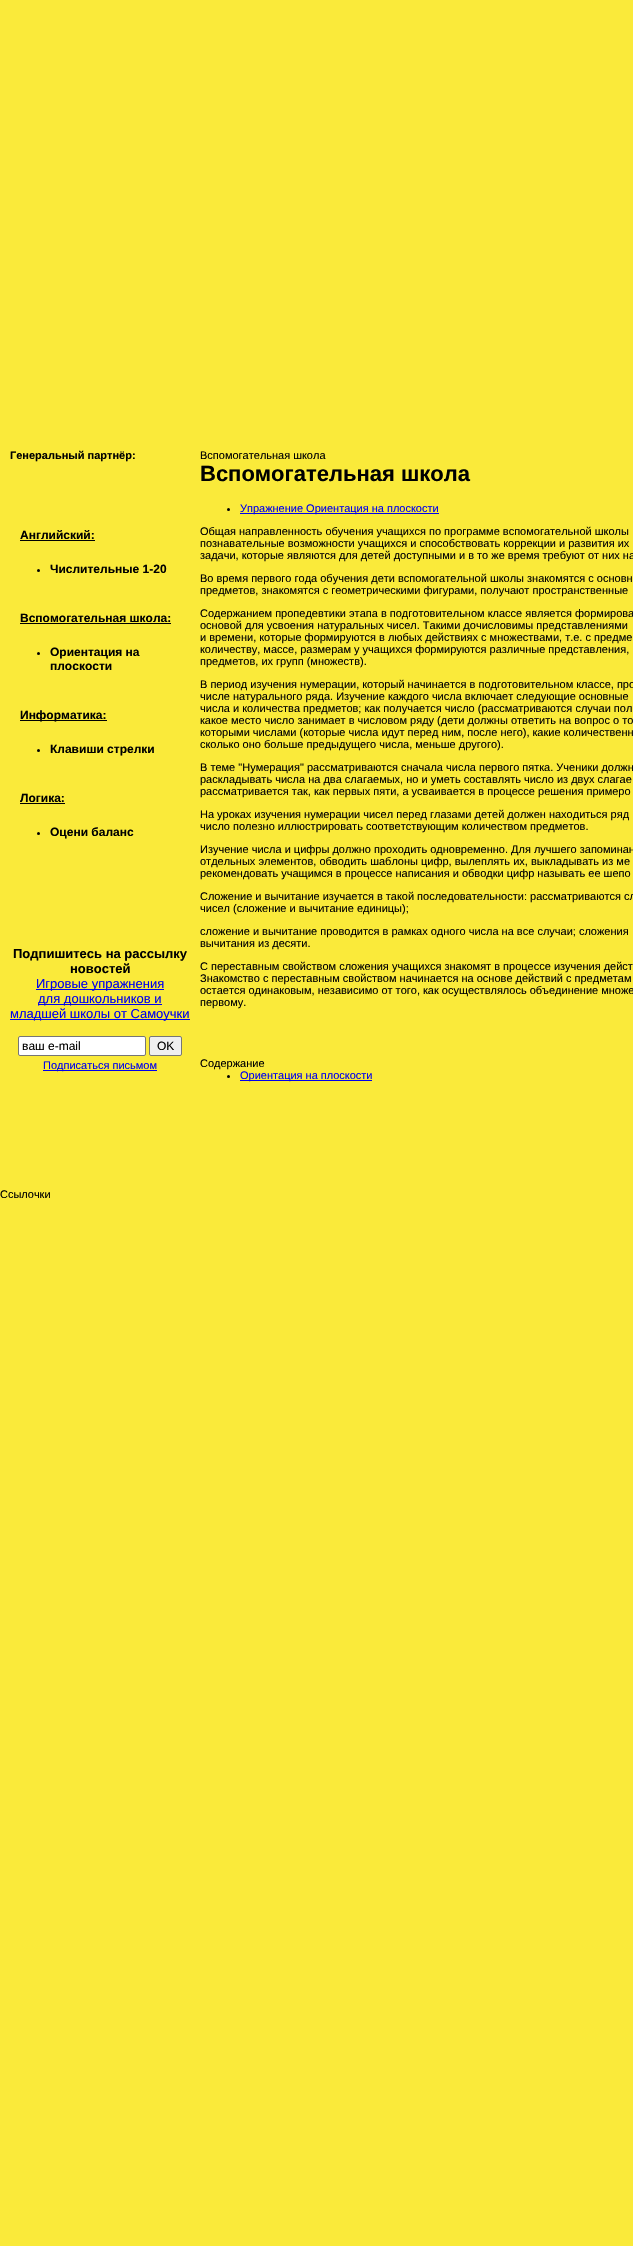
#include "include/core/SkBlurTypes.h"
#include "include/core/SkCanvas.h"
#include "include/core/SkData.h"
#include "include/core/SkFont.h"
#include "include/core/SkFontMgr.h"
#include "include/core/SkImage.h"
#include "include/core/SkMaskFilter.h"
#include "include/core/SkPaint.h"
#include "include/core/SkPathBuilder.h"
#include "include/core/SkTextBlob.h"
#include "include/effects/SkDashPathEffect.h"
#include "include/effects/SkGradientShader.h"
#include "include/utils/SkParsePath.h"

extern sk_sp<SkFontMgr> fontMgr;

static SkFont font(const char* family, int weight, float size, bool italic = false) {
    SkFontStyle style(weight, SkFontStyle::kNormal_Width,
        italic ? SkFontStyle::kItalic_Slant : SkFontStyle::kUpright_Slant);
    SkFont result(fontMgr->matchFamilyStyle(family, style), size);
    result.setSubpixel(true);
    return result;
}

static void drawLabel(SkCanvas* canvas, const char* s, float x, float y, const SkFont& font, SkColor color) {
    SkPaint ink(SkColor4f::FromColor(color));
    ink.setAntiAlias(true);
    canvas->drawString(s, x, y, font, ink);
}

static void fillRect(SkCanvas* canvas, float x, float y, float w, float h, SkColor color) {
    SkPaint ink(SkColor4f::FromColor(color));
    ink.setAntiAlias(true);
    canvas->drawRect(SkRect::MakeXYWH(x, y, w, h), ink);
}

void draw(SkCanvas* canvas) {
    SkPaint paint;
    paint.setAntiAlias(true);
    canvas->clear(0xFFFAEA3A);
    SkFont font1 = font("Liberation Sans", 700, 11);
    drawLabel(canvas, "Генеральный партнёр:", 10, 459, font1, 0xFF000000);
    SkFont font2 = font("Liberation Sans", 700, 12);
    drawLabel(canvas, "Английский:", 20, 539, font2, 0xFF000000);
    fillRect(canvas, 20, 540, 75, 1, 0xFF000000);
    paint.setColor(0xFF000000);
    canvas->drawCircle(38.5f, 570.5f, 1.5f, paint);
    drawLabel(canvas, "Числительные 1-20", 50, 573, font2, 0xFF000000);
    drawLabel(canvas, "Вспомогательная школа:", 20, 622, font2, 0xFF000000);
    fillRect(canvas, 20, 623, 151, 1, 0xFF000000);
    canvas->drawCircle(38.5f, 653.5f, 1.5f, paint);
    drawLabel(canvas, "Ориентация на", 50, 656, font2, 0xFF000000);
    drawLabel(canvas, "плоскости", 50, 670, font2, 0xFF000000);
    fillRect(canvas, 20, 720, 87, 1, 0xFF000000);
    drawLabel(canvas, "Информатика:", 20, 719, font2, 0xFF000000);
    canvas->drawCircle(38.5f, 750.5f, 1.5f, paint);
    drawLabel(canvas, "Клавиши стрелки", 50, 753, font2, 0xFF000000);
    drawLabel(canvas, "Логика:", 20, 802, font2, 0xFF000000);
    fillRect(canvas, 20, 803, 45, 1, 0xFF000000);
    canvas->drawCircle(38.5f, 833.5f, 1.5f, paint);
    drawLabel(canvas, "Оцени баланс", 50, 836, font2, 0xFF000000);
    SkFont font3 = font("Liberation Sans", 700, 13);
    drawLabel(canvas, "Подпишитесь на рассылку", 13, 958, font3, 0xFF000000);
    drawLabel(canvas, "новостей", 70, 973, font3, 0xFF000000);
    fillRect(canvas, 36, 989, 128, 1, 0xFF0000EE);
    SkFont font4 = font("Liberation Sans", 400, 13);
    drawLabel(canvas, "Игровые упражнения", 36, 988, font4, 0xFF0000EE);
    fillRect(canvas, 38, 1004, 124, 1, 0xFF0000EE);
    drawLabel(canvas, "для дошкольников и", 38, 1003, font4, 0xFF0000EE);
    fillRect(canvas, 10, 1019, 180, 1, 0xFF0000EE);
    drawLabel(canvas, "младшей школы от Самоучки", 10, 1018, font4, 0xFF0000EE);
    paint.setColor(0xFFFFFFFF);
    canvas->drawRoundRect(SkRect::MakeXYWH(18.5f, 1036.5f, 127, 19), 1.5f, 1.5f, paint);
    paint.setStroke(true);
    paint.setStrokeWidth(1);
    paint.setColor(0xFF767676);
    canvas->drawRoundRect(SkRect::MakeXYWH(18.5f, 1036.5f, 127, 19), 1.5f, 1.5f, paint);
    SkFont font5 = font("Liberation Sans", 400, 12);
    drawLabel(canvas, "ваш e-mail", 22, 1050, font5, 0xFF000000);
    paint.setStroke(false);
    paint.setColor(0xFFEFEFEF);
    canvas->drawRoundRect(SkRect::MakeXYWH(149.5f, 1036.5f, 32, 19), 1.5f, 1.5f, paint);
    paint.setStroke(true);
    paint.setColor(0xFF767676);
    canvas->drawRoundRect(SkRect::MakeXYWH(149.5f, 1036.5f, 32, 19), 1.5f, 1.5f, paint);
    drawLabel(canvas, "OK", 157, 1050, font5, 0xFF000000);
    fillRect(canvas, 43, 1070, 114, 1, 0xFF0000EE);
    SkFont font6 = font("Liberation Sans", 400, 11);
    drawLabel(canvas, "Подписаться письмом", 43, 1069, font6, 0xFF0000EE);
    drawLabel(canvas, "Вспомогательная школа", 200, 459, font6, 0xFF000000);
    SkFont font7 = font("Liberation Sans", 700, 22);
    drawLabel(canvas, "Вспомогательная школа", 200, 481, font7, 0xFF000000);
    paint.setStroke(false);
    paint.setColor(0xFF000000);
    canvas->drawCircle(228.5f, 509.5f, 1.5f, paint);
    fillRect(canvas, 240, 513, 199, 1, 0xFF0000EE);
    drawLabel(canvas, "Упражнение Ориентация на плоскости", 240, 512, font6, 0xFF0000EE);
    drawLabel(canvas, "Общая направленность обучения учащихся по программе вспомогательной школы", 200, 535, font6, 0xFF000000);
    drawLabel(canvas, "познавательные возможности учащихся и способствовать коррекции и развития их", 200, 547, font6, 0xFF000000);
    drawLabel(canvas, "задачи, которые являются для детей доступными и в то же время требуют от них на", 200, 559, font6, 0xFF000000);
    drawLabel(canvas, "Во время первого года обучения дети вспомогательной школы знакомятся с основн", 200, 582, font6, 0xFF000000);
    drawLabel(canvas, "предметов, знакомятся с геометрическими фигурами, получают пространственные", 200, 594, font6, 0xFF000000);
    drawLabel(canvas, "Содержанием пропедевтики этапа в подготовительном классе является формирова", 200, 617, font6, 0xFF000000);
    drawLabel(canvas, "основой для усвоения натуральных чисел. Такими дочисловимы представлениями", 200, 629, font6, 0xFF000000);
    drawLabel(canvas, "и времени, которые формируются в любых действиях с множествами, т.е. с предме", 200, 641, font6, 0xFF000000);
    drawLabel(canvas, "количеству, массе, размерам у учащихся формируются различные представления,", 200, 653, font6, 0xFF000000);
    drawLabel(canvas, "предметов, их групп (множеств).", 200, 665, font6, 0xFF000000);
    drawLabel(canvas, "В период изучения нумерации, который начинается в подготовительном классе, про", 200, 688, font6, 0xFF000000);
    drawLabel(canvas, "числе натурального ряда. Изучение каждого числа включает следующие основные", 200, 700, font6, 0xFF000000);
    drawLabel(canvas, "числа и количества предметов; как получается число (рассматриваются случаи пол", 200, 712, font6, 0xFF000000);
    drawLabel(canvas, "какое место число занимает в числовом ряду (дети должны ответить на вопрос о то", 200, 724, font6, 0xFF000000);
    drawLabel(canvas, "которыми числами (которые числа идут перед ним, после него), какие количественн", 200, 736, font6, 0xFF000000);
    drawLabel(canvas, "сколько оно больше предыдущего числа, меньше другого).", 200, 748, font6, 0xFF000000);
    drawLabel(canvas, "В теме \"Нумерация\" рассматриваются сначала числа первого пятка. Ученики должн", 200, 771, font6, 0xFF000000);
    drawLabel(canvas, "раскладывать числа на два слагаемых, но и уметь составлять число из двух слагае", 200, 783, font6, 0xFF000000);
    drawLabel(canvas, "рассматривается так, как первых пяти, а усваивается в процессе решения примеро", 200, 795, font6, 0xFF000000);
    drawLabel(canvas, "На уроках изучения нумерации чисел перед глазами детей должен находиться ряд", 200, 818, font6, 0xFF000000);
    drawLabel(canvas, "число полезно иллюстрировать соответствующим количеством предметов.", 200, 830, font6, 0xFF000000);
    drawLabel(canvas, "Изучение числа и цифры должно проходить одновременно. Для лучшего запоминан", 200, 853, font6, 0xFF000000);
    drawLabel(canvas, "отдельных элементов, обводить шаблоны цифр, вылеплять их, выкладывать из ме", 200, 865, font6, 0xFF000000);
    drawLabel(canvas, "рекомендовать учащимся в процессе написания и обводки цифр называть ее шепо", 200, 877, font6, 0xFF000000);
    drawLabel(canvas, "Сложение и вычитание изучается в такой последовательности: рассматриваются сл", 200, 900, font6, 0xFF000000);
    drawLabel(canvas, "чисел (сложение и вычитание единицы);", 200, 912, font6, 0xFF000000);
    drawLabel(canvas, "сложение и вычитание проводится в рамках одного числа на все случаи; сложения", 200, 935, font6, 0xFF000000);
    drawLabel(canvas, "вычитания из десяти.", 200, 947, font6, 0xFF000000);
    drawLabel(canvas, "С переставным свойством сложения учащихся знакомят в процессе изучения дейст", 200, 970, font6, 0xFF000000);
    drawLabel(canvas, "Знакомство с переставным свойством начинается на основе действий с предметам", 200, 982, font6, 0xFF000000);
    drawLabel(canvas, "остается одинаковым, независимо от того, как осуществлялось объединение множе", 200, 994, font6, 0xFF000000);
    drawLabel(canvas, "первому.", 200, 1006, font6, 0xFF000000);
    drawLabel(canvas, "Содержание", 200, 1067, font6, 0xFF000000);
    canvas->drawCircle(228.5f, 1076.5f, 1.5f, paint);
    fillRect(canvas, 240, 1080, 132, 1, 0xFF0000EE);
    drawLabel(canvas, "Ориентация на плоскости", 240, 1079, font6, 0xFF0000EE);
    drawLabel(canvas, "Ссылочки", 0, 1198, font6, 0xFF000000);
}
